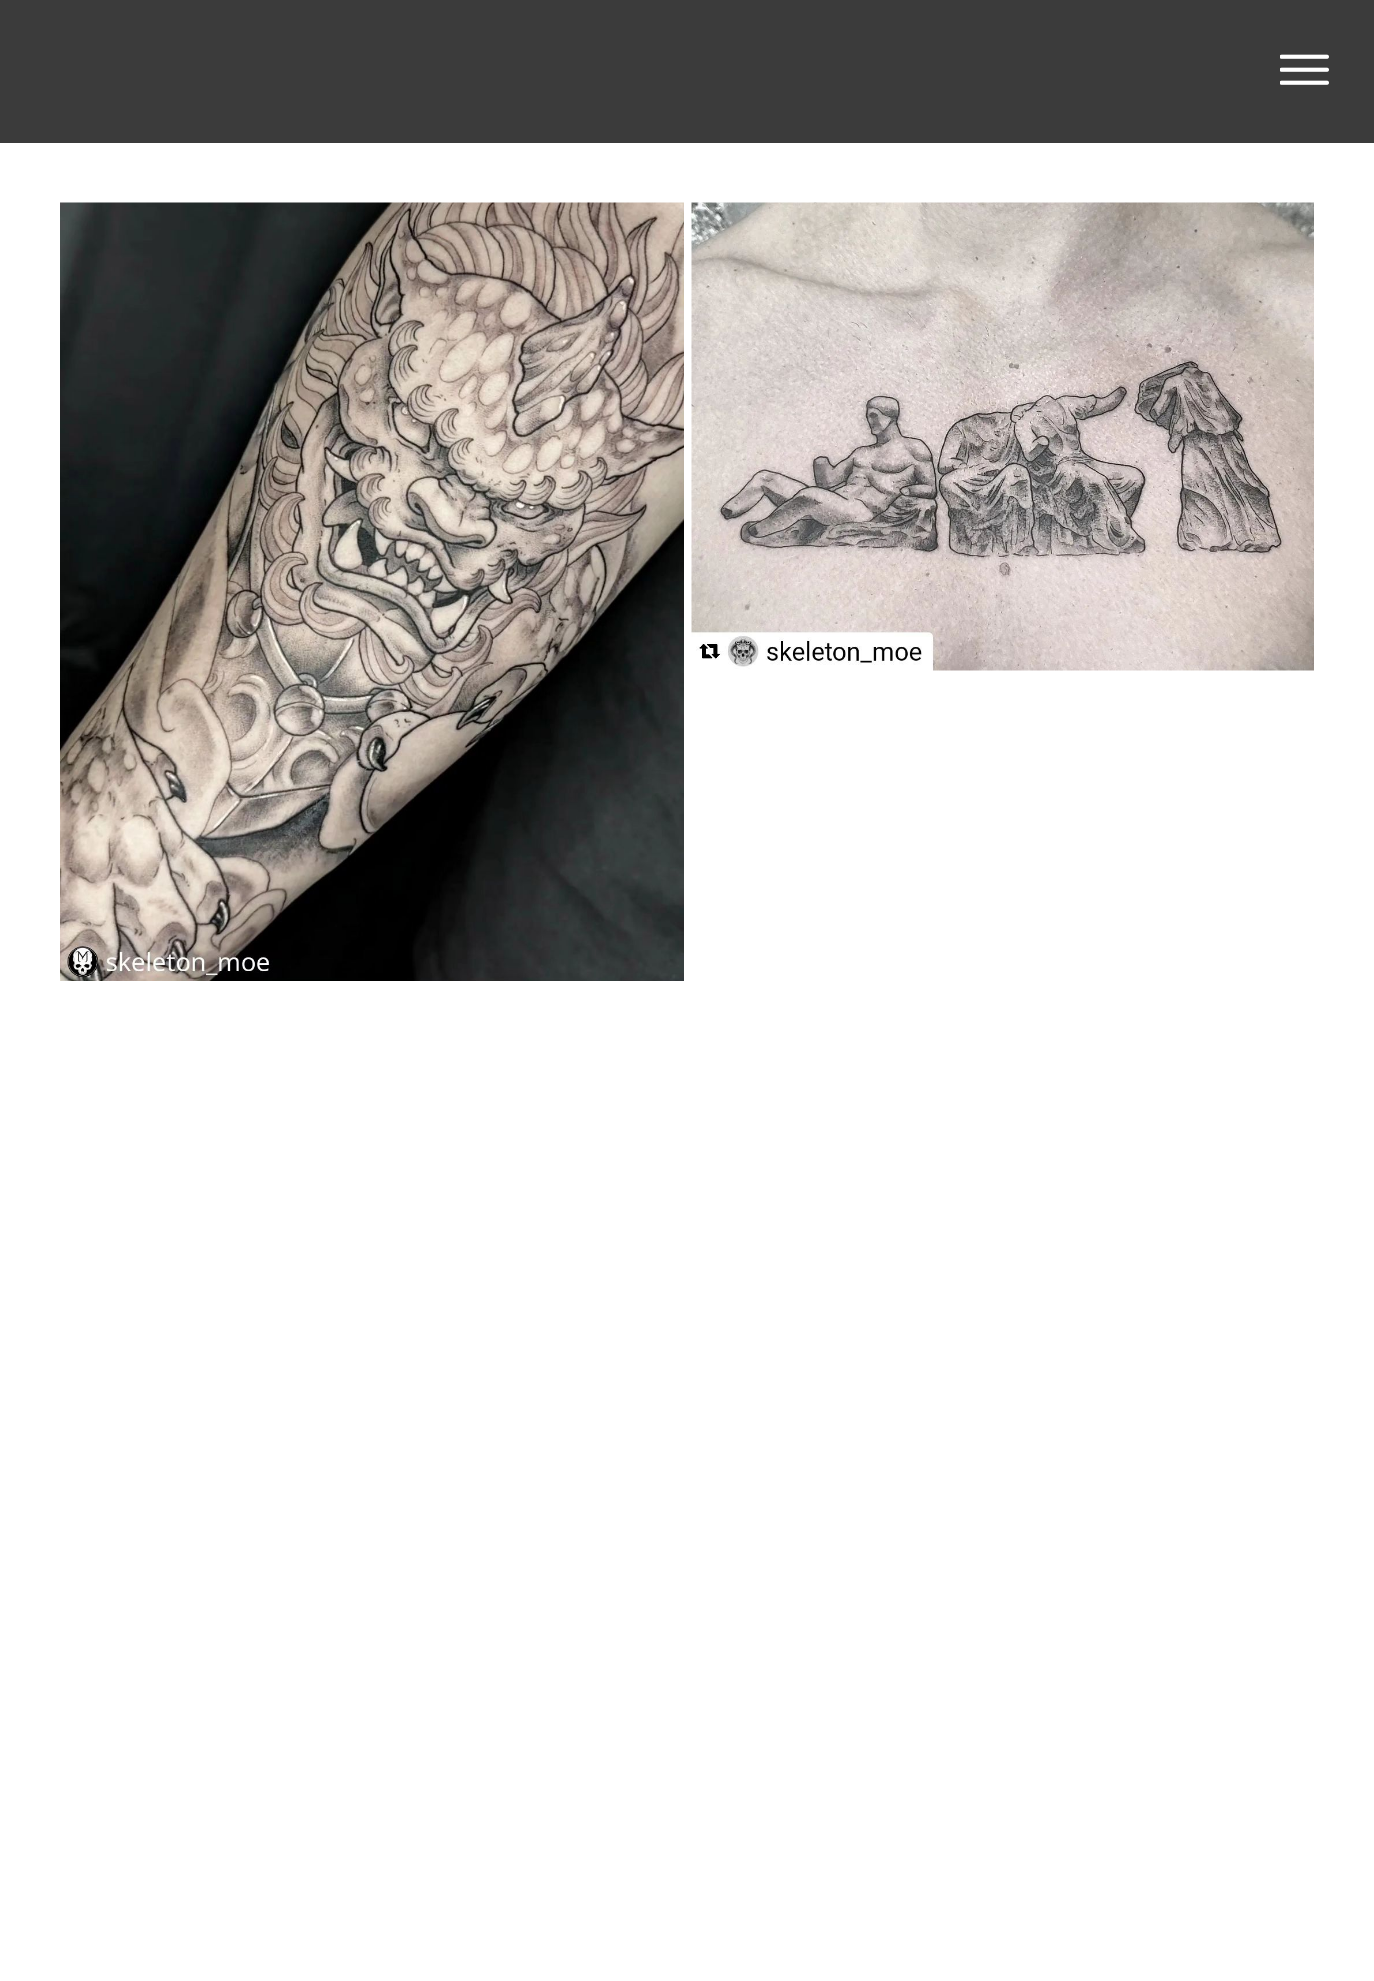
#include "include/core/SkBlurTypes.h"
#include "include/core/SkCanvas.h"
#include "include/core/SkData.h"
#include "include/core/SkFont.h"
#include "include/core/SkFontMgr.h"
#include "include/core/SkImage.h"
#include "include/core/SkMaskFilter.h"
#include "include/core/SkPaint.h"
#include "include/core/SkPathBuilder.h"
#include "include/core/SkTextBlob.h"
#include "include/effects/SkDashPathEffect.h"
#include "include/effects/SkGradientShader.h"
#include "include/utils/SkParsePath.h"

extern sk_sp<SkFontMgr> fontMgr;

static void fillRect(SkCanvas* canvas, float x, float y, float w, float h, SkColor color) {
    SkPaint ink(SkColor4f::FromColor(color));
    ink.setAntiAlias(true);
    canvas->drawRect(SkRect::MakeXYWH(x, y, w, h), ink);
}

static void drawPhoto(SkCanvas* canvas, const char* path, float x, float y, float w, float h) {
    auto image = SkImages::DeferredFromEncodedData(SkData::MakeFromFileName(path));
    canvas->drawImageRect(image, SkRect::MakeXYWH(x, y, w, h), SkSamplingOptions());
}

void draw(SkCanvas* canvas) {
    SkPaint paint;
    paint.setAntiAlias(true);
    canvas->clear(0xFFFFFFFF);
    fillRect(canvas, 0, 0, 1374, 143, 0xFF3B3B3B);
    drawPhoto(canvas, "assets/img1.png", 1280, 54, 49, 31);
    drawPhoto(canvas, "assets/img2.png", 60, 202, 624, 779);
    drawPhoto(canvas, "assets/img3.png", 691, 202, 623, 469);
}
